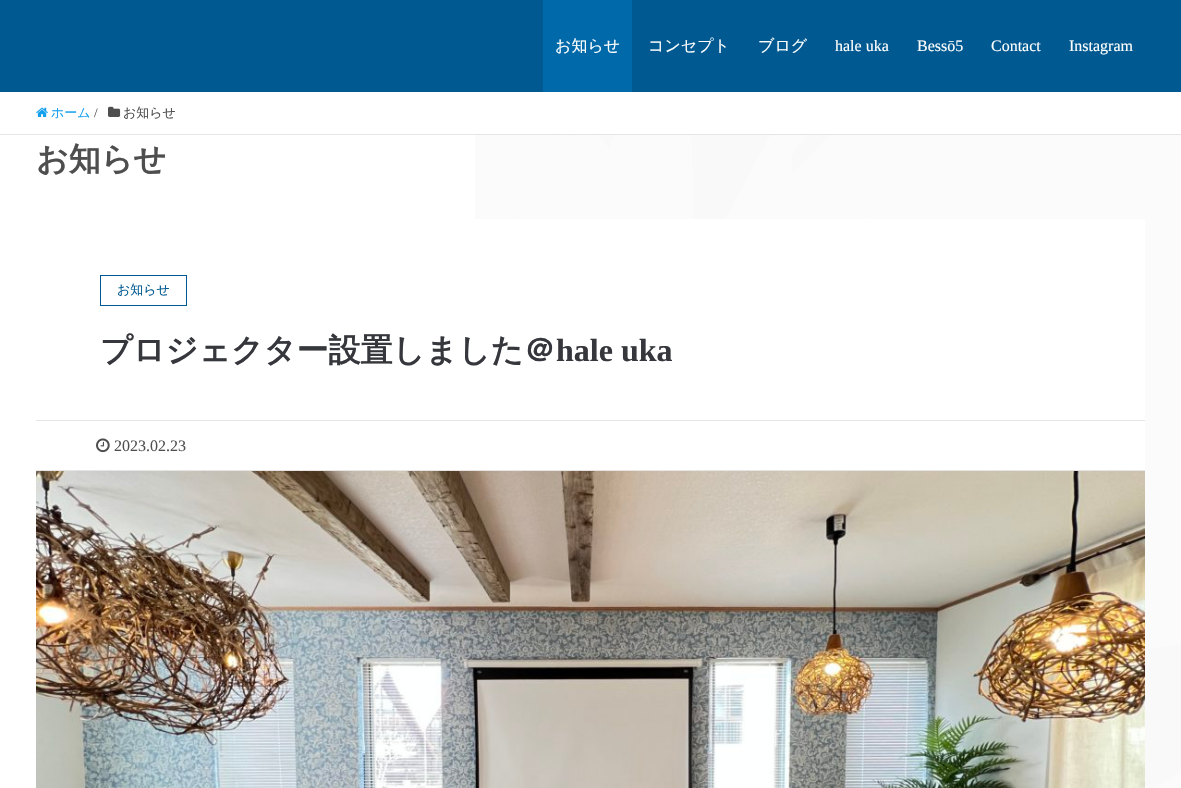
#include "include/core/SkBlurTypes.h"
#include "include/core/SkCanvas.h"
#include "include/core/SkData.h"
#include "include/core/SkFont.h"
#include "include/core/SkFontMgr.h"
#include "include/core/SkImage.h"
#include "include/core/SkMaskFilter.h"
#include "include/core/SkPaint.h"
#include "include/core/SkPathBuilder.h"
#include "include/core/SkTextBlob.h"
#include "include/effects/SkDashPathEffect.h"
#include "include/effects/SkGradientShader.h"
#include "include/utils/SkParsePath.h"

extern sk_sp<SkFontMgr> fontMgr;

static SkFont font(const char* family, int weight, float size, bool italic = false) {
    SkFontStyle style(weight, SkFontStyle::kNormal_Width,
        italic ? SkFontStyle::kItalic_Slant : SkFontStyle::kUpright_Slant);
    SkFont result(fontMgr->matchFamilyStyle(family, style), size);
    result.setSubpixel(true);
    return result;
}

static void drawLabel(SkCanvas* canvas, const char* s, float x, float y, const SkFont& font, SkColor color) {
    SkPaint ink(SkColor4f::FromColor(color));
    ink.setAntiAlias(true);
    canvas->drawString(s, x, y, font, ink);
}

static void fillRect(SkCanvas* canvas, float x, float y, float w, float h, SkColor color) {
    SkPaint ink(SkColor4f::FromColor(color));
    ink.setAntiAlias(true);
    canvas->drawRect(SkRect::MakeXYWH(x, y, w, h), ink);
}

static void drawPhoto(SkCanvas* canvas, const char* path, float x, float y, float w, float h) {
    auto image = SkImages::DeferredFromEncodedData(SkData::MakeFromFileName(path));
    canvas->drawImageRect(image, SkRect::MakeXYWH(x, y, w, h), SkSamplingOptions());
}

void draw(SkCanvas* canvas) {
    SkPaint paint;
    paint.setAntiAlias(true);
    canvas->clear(0xFFFFFFFF);
    drawPhoto(canvas, "assets/img1.png", 475, 135, 706, 653);
    fillRect(canvas, 0, 0, 1181, 92, 0xFF005990);
    fillRect(canvas, 543, 0, 89, 92, 0xFF0069AA);
    SkFont font1 = font("WenQuanYi Zen Hei", 500, 16);
    drawLabel(canvas, "お知らせ", 555, 51, font1, 0xFFFFFFFF);
    drawLabel(canvas, "コンセプト", 648, 51, font1, 0xFFFFFFFF);
    drawLabel(canvas, "ブログ", 758, 51, font1, 0xFFFFFFFF);
    SkFont font2 = font("Liberation Serif", 400, 16);
    drawLabel(canvas, "hale uka", 835, 51, font2, 0xFFFFFFFF);
    drawLabel(canvas, "Bessō5", 917, 51, font2, 0xFFFFFFFF);
    drawLabel(canvas, "Contact", 991, 51, font2, 0xFFFFFFFF);
    drawLabel(canvas, "Instagram", 1069, 51, font2, 0xFFFFFFFF);
    fillRect(canvas, 0, 134, 1181, 1, 0xFFE5E5E5);
    drawPhoto(canvas, "assets/img2.png", 36, 107, 12, 10);
    SkFont font3 = font("WenQuanYi Zen Hei", 500, 13);
    drawLabel(canvas, "ホーム", 51, 117, font3, 0xFF14A0EE);
    SkFont font4 = font("Liberation Serif", 400, 13);
    drawLabel(canvas, "/", 94, 117, font4, 0xFF4E4E4E);
    drawPhoto(canvas, "assets/img3.png", 108, 106, 13, 11);
    drawLabel(canvas, "お知らせ", 123, 117, font3, 0xFF4E4E4E);
    SkFont font5 = font("WenQuanYi Zen Hei", 700, 32);
    drawLabel(canvas, "お知らせ", 36, 170, font5, 0xFF4E4E4E);
    fillRect(canvas, 475, 219, 670, 251, 0xFFFFFFFF);
    fillRect(canvas, 36, 420, 1109, 1, 0xFFE5E5E5);
    paint.setStroke(true);
    paint.setStrokeWidth(1);
    paint.setColor(0xFF005990);
    canvas->drawRect(SkRect::MakeXYWH(100.5f, 275.5f, 86, 30), paint);
    drawLabel(canvas, "お知らせ", 117, 294, font3, 0xFF005990);
    drawLabel(canvas, "プロジェクター設置しました＠", 100, 361, font5, 0xFF36373C);
    SkFont font6 = font("Liberation Serif", 700, 32);
    drawLabel(canvas, "hale uka", 556, 361, font6, 0xFF36373C);
    fillRect(canvas, 36, 470, 1109, 1, 0xFFE5E5E5);
    drawPhoto(canvas, "assets/img4.png", 96, 438, 14, 15);
    drawLabel(canvas, "2023.02.23", 114, 451, font2, 0xFF4E4E4E);
    drawPhoto(canvas, "assets/img5.png", 36, 471, 1109, 317);
}
